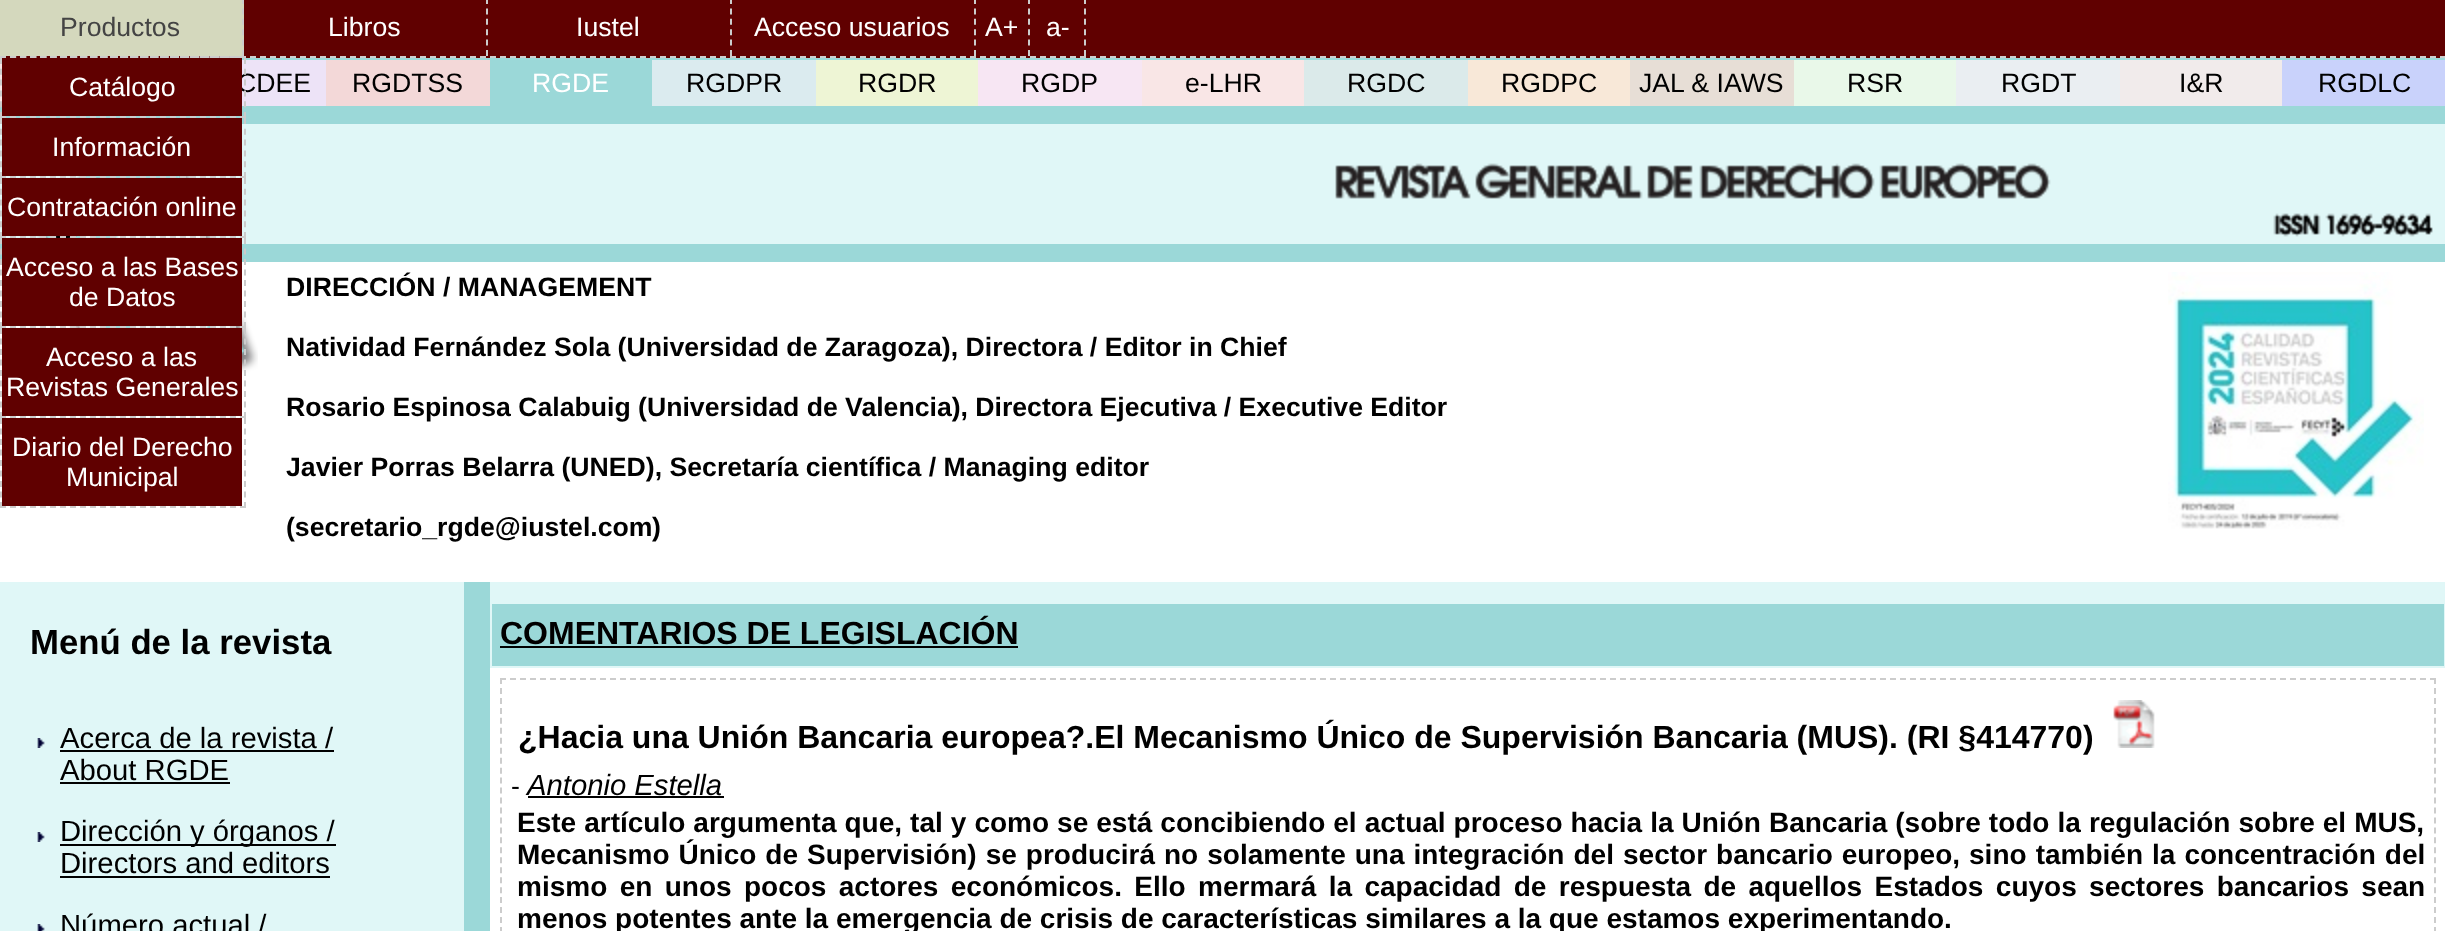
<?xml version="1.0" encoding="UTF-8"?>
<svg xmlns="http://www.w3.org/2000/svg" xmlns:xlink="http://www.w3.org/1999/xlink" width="2445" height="931">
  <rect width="100%" height="100%" fill="#ffffff" />
  <rect x="6" width="2439" height="58" fill="#600000" />
  <path d="M 0 57 h 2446" fill="none" stroke="#cccccc" stroke-width="2" stroke-dasharray="6 4" />
  <rect width="244" height="56" fill="#d4d8bd" />
  <path d="M 243 -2 v 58" fill="none" stroke="#cccccc" stroke-width="2" stroke-dasharray="6 4.4" />
  <path d="M 0 57 h 240" fill="none" stroke="#cccccc" stroke-width="2" stroke-dasharray="6 4.18" />
  <rect y="58" width="2445" height="66" fill="#9bd8d8" />
  <rect y="124" width="2445" height="120" fill="#e0f7f7" />
  <rect y="244" width="2445" height="18" fill="#9bd8d8" />
  <image x="36" y="176" width="222" height="242" xlink:href="image2.png" />
  <path d="M 245 118 v 60" fill="none" stroke="#cccccc" stroke-width="2" stroke-dasharray="6 4.8" />
  <path d="M 0 177 h 246" fill="none" stroke="#cccccc" stroke-width="2" stroke-dasharray="6 4" />
  <path d="M 1 118 v 60" fill="none" stroke="#cccccc" stroke-width="2" stroke-dasharray="6 4.8" />
  <rect x="2" y="118" width="240" height="58" fill="#600000" />
  <path d="M 245 178 v 60" fill="none" stroke="#cccccc" stroke-width="2" stroke-dasharray="6 4.8" />
  <path d="M 0 237 h 246" fill="none" stroke="#cccccc" stroke-width="2" stroke-dasharray="6 4" />
  <path d="M 1 178 v 60" fill="none" stroke="#cccccc" stroke-width="2" stroke-dasharray="6 4.8" />
  <rect x="2" y="178" width="240" height="58" fill="#600000" />
  <path d="M 245 238 v 90" fill="none" stroke="#cccccc" stroke-width="2" stroke-dasharray="6 4.5" />
  <path d="M 0 327 h 246" fill="none" stroke="#cccccc" stroke-width="2" stroke-dasharray="6 4" />
  <path d="M 1 238 v 90" fill="none" stroke="#cccccc" stroke-width="2" stroke-dasharray="6 4.5" />
  <rect x="2" y="238" width="240" height="88" fill="#600000" />
  <path d="M 245 328 v 90" fill="none" stroke="#cccccc" stroke-width="2" stroke-dasharray="6 4.5" />
  <path d="M 0 417 h 246" fill="none" stroke="#cccccc" stroke-width="2" stroke-dasharray="6 4" />
  <path d="M 1 328 v 90" fill="none" stroke="#cccccc" stroke-width="2" stroke-dasharray="6 4.5" />
  <rect x="2" y="328" width="240" height="88" fill="#600000" />
  <path d="M 245 418 v 90" fill="none" stroke="#cccccc" stroke-width="2" stroke-dasharray="6 4.5" />
  <path d="M 0 507 h 246" fill="none" stroke="#cccccc" stroke-width="2" stroke-dasharray="6 4" />
  <path d="M 1 418 v 90" fill="none" stroke="#cccccc" stroke-width="2" stroke-dasharray="6 4.5" />
  <rect x="2" y="418" width="240" height="88" fill="#600000" />
  <path d="M 487 -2 v 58" fill="none" stroke="#cccccc" stroke-width="2" stroke-dasharray="6 4.4" />
  <path d="M 731 -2 v 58" fill="none" stroke="#cccccc" stroke-width="2" stroke-dasharray="6 4.4" />
  <path d="M 975 -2 v 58" fill="none" stroke="#cccccc" stroke-width="2" stroke-dasharray="6 4.4" />
  <path d="M 1029 -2 v 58" fill="none" stroke="#cccccc" stroke-width="2" stroke-dasharray="6 4.4" />
  <path d="M 1085 -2 v 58" fill="none" stroke="#cccccc" stroke-width="2" stroke-dasharray="6 4.4" />
  <rect y="64" width="2" height="38" fill="#f9e6e6" />
  <rect x="242" y="60" width="84" height="46" fill="#ede3f7" />
  <rect x="326" y="60" width="164" height="46" fill="#f3d8d8" />
  <rect x="652" y="60" width="164" height="46" fill="#dbebef" />
  <rect x="816" y="60" width="162" height="46" fill="#eef5d5" />
  <rect x="978" y="60" width="164" height="46" fill="#f7e6f3" />
  <rect x="1142" y="60" width="162" height="46" fill="#f9e6e6" />
  <rect x="1304" y="60" width="164" height="46" fill="#dbeaea" />
  <rect x="1468" y="60" width="162" height="46" fill="#f8e8d8" />
  <rect x="1630" y="60" width="164" height="46" fill="#e7ded6" />
  <rect x="1794" y="60" width="162" height="46" fill="#e9f8e9" />
  <rect x="1956" y="60" width="164" height="46" fill="#eaeef2" />
  <rect x="2120" y="60" width="162" height="46" fill="#f1ebeb" />
  <rect x="2282" y="60" width="163" height="46" fill="#c9d2fb" />
  <image x="1335" y="163" width="1098" height="74" xlink:href="image1.png" />
  <image x="2168" y="272" width="256" height="257" xlink:href="image3.png" />
  <rect y="582" width="2445" height="349" fill="#e0f7f7" />
  <image x="37" y="738" width="8" height="10" xlink:href="image4.png" />
  <rect x="60" y="750" width="274" height="2" fill="#000000" />
  <rect x="60" y="782" width="170" height="2" fill="#000000" />
  <image x="37" y="832" width="8" height="10" xlink:href="image4.png" />
  <rect x="60" y="844" width="276" height="2" fill="#000000" />
  <rect x="60" y="876" width="270" height="2" fill="#000000" />
  <image x="37" y="924" width="8" height="7" xlink:href="image5.png" />
  <rect x="464" y="582" width="26" height="349" fill="#9bd8d8" />
  <rect x="490" y="668" width="1955" height="263" fill="#ffffff" />
  <rect x="492" y="604" width="1952" height="62" fill="#9bd8d8" />
  <rect x="500" y="646" width="518" height="2" fill="#000000" />
  <path d="M 500 679 h 1936" fill="none" stroke="#cccccc" stroke-width="2" stroke-dasharray="6 4" />
  <path d="M 2435 678 v 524" fill="none" stroke="#cccccc" stroke-width="2" stroke-dasharray="6 3.96" />
  <path d="M 501 678 v 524" fill="none" stroke="#cccccc" stroke-width="2" stroke-dasharray="6 3.96" />
  <image x="2113" y="700" width="42" height="48" xlink:href="image6.png" />
  <rect x="528" y="796" width="196" height="2" fill="#000000" />
  <text x="60" y="36" style="font-family: Liberation Sans; font-size: 26.65px; fill: #444444">Productos</text>
  <text x="52" y="156" style="font-family: Liberation Sans; font-size: 26.65px; fill: #ffffff">Información</text>
  <text x="7" y="216" style="font-family: Liberation Sans; font-size: 26.65px; fill: #ffffff">Contratación online</text>
  <text x="6" y="276" style="font-family: Liberation Sans; font-size: 26.65px; fill: #ffffff">Acceso a las Bases</text>
  <text x="69" y="306" style="font-family: Liberation Sans; font-size: 26.65px; fill: #ffffff">de Datos</text>
  <text x="46" y="366" style="font-family: Liberation Sans; font-size: 26.65px; fill: #ffffff">Acceso a las</text>
  <text x="6" y="396" style="font-family: Liberation Sans; font-size: 26.65px; fill: #ffffff">Revistas Generales</text>
  <text x="12" y="456" style="font-family: Liberation Sans; font-size: 26.65px; fill: #ffffff">Diario del Derecho</text>
  <text x="66" y="486" style="font-family: Liberation Sans; font-size: 26.65px; fill: #ffffff">Municipal</text>
  <text x="328" y="36" style="font-family: Liberation Sans; font-size: 26.65px; fill: #ffffff">Libros</text>
  <text x="576" y="36" style="font-family: Liberation Sans; font-size: 26.65px; fill: #ffffff">Iustel</text>
  <text x="754" y="36" style="font-family: Liberation Sans; font-size: 26.65px; fill: #ffffff">Acceso usuarios</text>
  <text x="985" y="36" style="font-family: Liberation Sans; font-size: 26.65px; fill: #ffffff">A+</text>
  <text x="1046" y="36" style="font-family: Liberation Sans; font-size: 26.65px; fill: #ffffff">a-</text>
  <text x="237" y="92" style="font-family: Liberation Sans; font-size: 26.65px; fill: #000000">CDEE</text>
  <rect x="2" y="58" width="240" height="58" fill="#600000" />
  <text x="69" y="96" style="font-family: Liberation Sans; font-size: 26.65px; fill: #ffffff">Catálogo</text>
  <path d="M 245 58 v 60" fill="none" stroke="#cccccc" stroke-width="2" stroke-dasharray="6 4.8" />
  <path d="M 0 117 h 246" fill="none" stroke="#cccccc" stroke-width="2" stroke-dasharray="6 4" />
  <path d="M 1 58 v 60" fill="none" stroke="#cccccc" stroke-width="2" stroke-dasharray="6 4.8" />
  <text x="352" y="92" style="font-family: Liberation Sans; font-size: 26.65px; fill: #000000">RGDTSS</text>
  <text x="532" y="92" style="font-family: Liberation Sans; font-size: 26.65px; fill: #ffffff">RGDE</text>
  <text x="686" y="92" style="font-family: Liberation Sans; font-size: 26.65px; fill: #000000">RGDPR</text>
  <text x="858" y="92" style="font-family: Liberation Sans; font-size: 26.65px; fill: #000000">RGDR</text>
  <text x="1021" y="92" style="font-family: Liberation Sans; font-size: 26.65px; fill: #000000">RGDP</text>
  <text x="1185" y="92" style="font-family: Liberation Sans; font-size: 26.65px; fill: #000000">e-LHR</text>
  <text x="1347" y="92" style="font-family: Liberation Sans; font-size: 26.65px; fill: #000000">RGDC</text>
  <text x="1501" y="92" style="font-family: Liberation Sans; font-size: 26.65px; fill: #000000">RGDPC</text>
  <text x="1639" y="92" style="font-family: Liberation Sans; font-size: 26.65px; fill: #000000">JAL &amp; IAWS</text>
  <text x="1847" y="92" style="font-family: Liberation Sans; font-size: 26.65px; fill: #000000">RSR</text>
  <text x="2001" y="92" style="font-family: Liberation Sans; font-size: 26.65px; fill: #000000">RGDT</text>
  <text x="2179" y="92" style="font-family: Liberation Sans; font-size: 26.65px; fill: #000000">I&amp;R</text>
  <text x="2318" y="92" style="font-family: Liberation Sans; font-size: 26.65px; fill: #000000">RGDLC</text>
  <text x="286" y="296" style="font-family: Liberation Sans; font-size: 26.65px; font-weight: bold; fill: #000000">DIRECCIÓN / MANAGEMENT</text>
  <text x="286" y="356" style="font-family: Liberation Sans; font-size: 26.65px; font-weight: bold; fill: #000000">Natividad Fernández Sola (Universidad de Zaragoza), Directora / Editor in Chief</text>
  <text x="286" y="416" word-spacing="-0.1" style="font-family: Liberation Sans; font-size: 26.65px; font-weight: bold; fill: #000000">Rosario Espinosa Calabuig (Universidad de Valencia), Directora Ejecutiva / Executive Editor</text>
  <text x="286" y="476" style="font-family: Liberation Sans; font-size: 26.65px; font-weight: bold; fill: #000000">Javier Porras Belarra (UNED), Secretaría científica / Managing editor</text>
  <text x="286" y="536" style="font-family: Liberation Sans; font-size: 26.65px; font-weight: bold; fill: #000000">(secretario_rgde@iustel.com</text>
  <text x="652" y="536" style="font-family: Liberation Sans; font-size: 26.65px; font-weight: bold; fill: #000000">)</text>
  <text x="30" y="654" style="font-family: Liberation Sans; font-size: 34.75px; font-weight: bold; fill: #000000">Menú de la revista</text>
  <text x="60" y="748" style="font-family: Liberation Sans; font-size: 29.25px; fill: #000000">Acerca de la revista /</text>
  <text x="60" y="780" style="font-family: Liberation Sans; font-size: 29.25px; fill: #000000">About RGDE</text>
  <text x="60" y="841" style="font-family: Liberation Sans; font-size: 29.25px; fill: #000000">Dirección y órganos /</text>
  <text x="60" y="873" style="font-family: Liberation Sans; font-size: 29.25px; fill: #000000">Directors and editors</text>
  <text x="60" y="935" style="font-family: Liberation Sans; font-size: 29.25px; fill: #000000">Número actual /</text>
  <text x="500" y="644" style="font-family: Liberation Sans; font-size: 32px; font-weight: bold; fill: #000000">COMENTARIOS DE LEGISLACIÓN</text>
  <text x="518" y="748" style="font-family: Liberation Sans; font-size: 32px; font-weight: bold; fill: #000000">¿Hacia una Unión Bancaria europea?.El Mecanismo Único de Supervisión Bancaria (MUS). (RI §414770)</text>
  <text x="511" y="795" style="font-family: Liberation Sans; font-size: 26.65px; fill: #000000">-</text>
  <text x="527" y="795" style="font-family: Liberation Sans; font-size: 29.25px; font-style: italic; fill: #000000">Antonio Estella</text>
  <text x="517" y="832" word-spacing="0.25" style="font-family: Liberation Sans; font-size: 28px; font-weight: bold; fill: #000000">Este artículo argumenta que, tal y como se está concibiendo el actual proceso hacia la Unión Bancaria (sobre todo la regulación sobre el MUS,</text>
  <text x="517" y="864" word-spacing="1.25" style="font-family: Liberation Sans; font-size: 28px; font-weight: bold; fill: #000000">Mecanismo Único de Supervisión) se producirá no solamente una integración del sector bancario europeo, sino también la concentración del</text>
  <text x="517" y="896" word-spacing="4.6" style="font-family: Liberation Sans; font-size: 28px; font-weight: bold; fill: #000000">mismo en unos pocos actores económicos. Ello mermará la capacidad de respuesta de aquellos Estados cuyos sectores bancarios sean</text>
  <text x="517" y="928" style="font-family: Liberation Sans; font-size: 28px; font-weight: bold; fill: #000000">menos potentes ante la emergencia de crisis de características similares a la que estamos experimentando.</text>
</svg>
